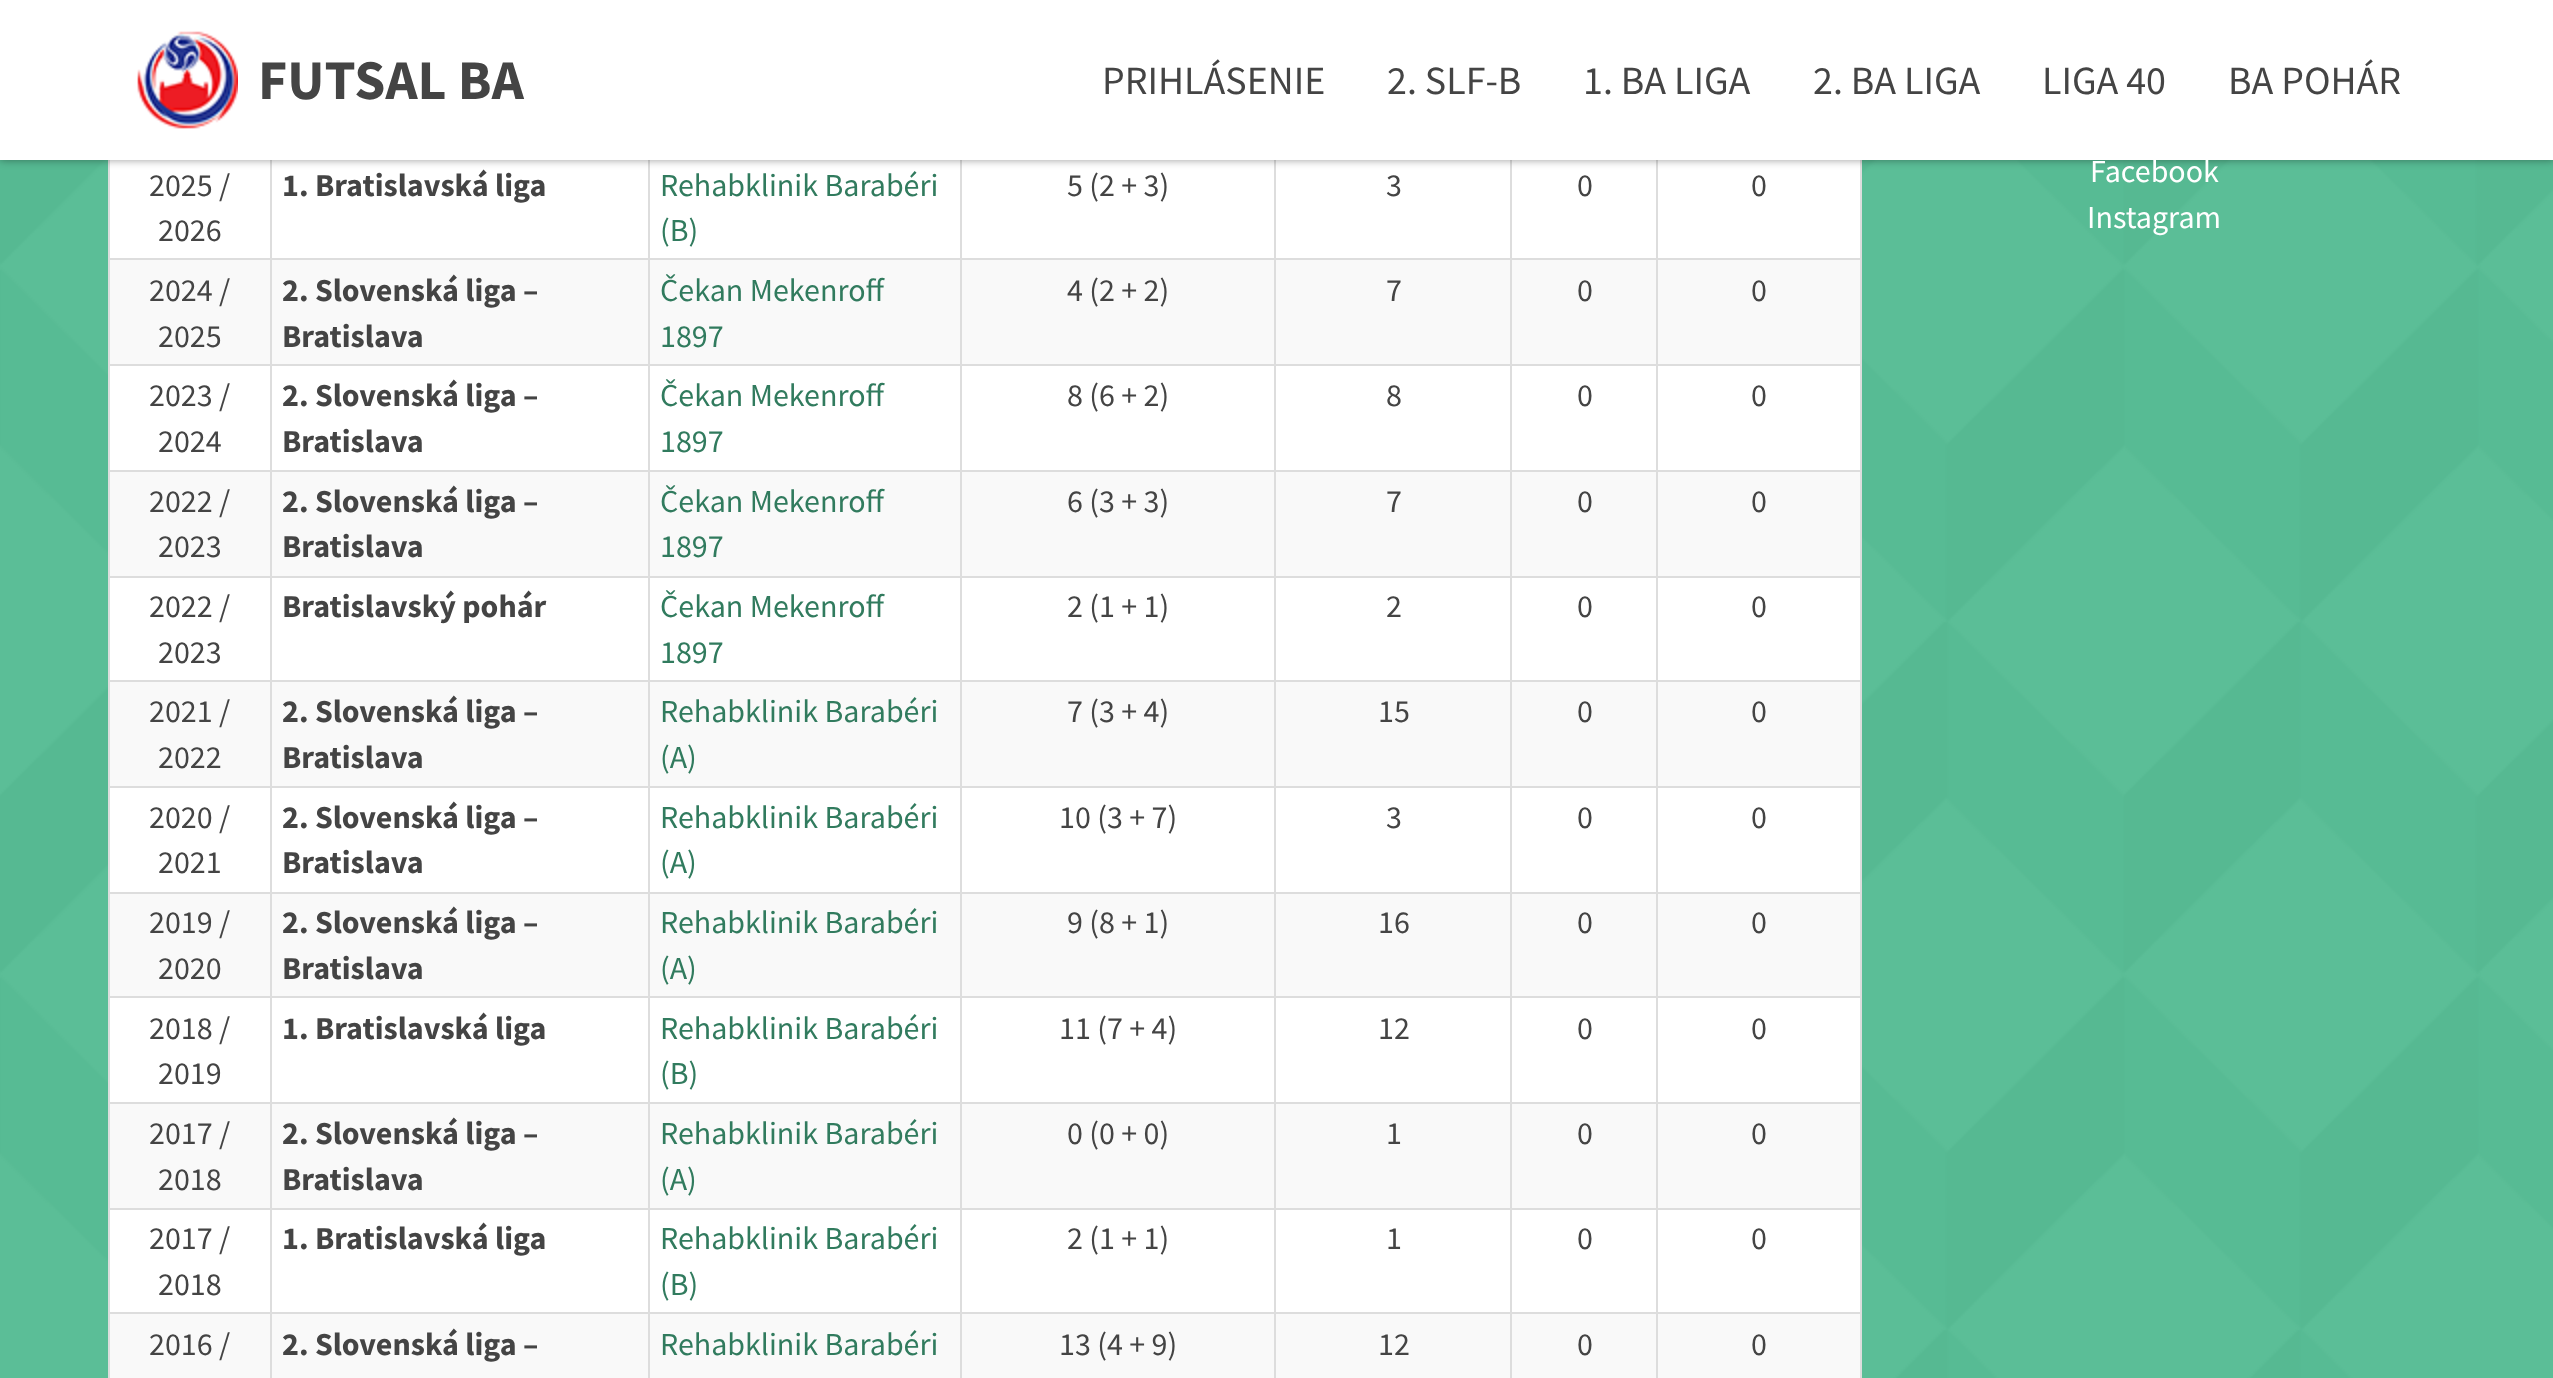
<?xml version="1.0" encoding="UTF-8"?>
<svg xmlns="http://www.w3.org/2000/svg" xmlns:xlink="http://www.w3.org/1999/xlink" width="2553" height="1378">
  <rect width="100%" height="100%" fill="#56bc94" />
  <image x="0" y="160" width="2553" height="1218" xlink:href="image2.png" />
  <rect x="110" y="160" width="1750" height="1152" fill="#ffffff" />
  <rect x="109" y="-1" width="1752" height="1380" fill="none" stroke="#dddddd" stroke-width="2" />
  <rect x="270" y="154" width="2" height="104" fill="#dddddd" />
  <rect x="648" y="154" width="2" height="104" fill="#dddddd" />
  <rect x="960" y="154" width="2" height="104" fill="#dddddd" />
  <rect x="1274" y="154" width="2" height="104" fill="#dddddd" />
  <rect x="1510" y="154" width="2" height="104" fill="#dddddd" />
  <rect x="1656" y="154" width="2" height="104" fill="#dddddd" />
  <rect width="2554" height="160" fill="#000000" fill-opacity="0.4" filter="blur(4px)" />
  <rect width="2553" height="160" fill="#ffffff" />
  <image x="137" y="31" width="101" height="98" xlink:href="image1.png" />
  <rect x="110" y="260" width="1750" height="104" fill="#f9f9f9" />
  <rect x="110" y="258" width="1750" height="2" fill="#dddddd" />
  <rect x="270" y="258" width="2" height="106" fill="#dddddd" />
  <rect x="648" y="258" width="2" height="106" fill="#dddddd" />
  <rect x="960" y="258" width="2" height="106" fill="#dddddd" />
  <rect x="1274" y="258" width="2" height="106" fill="#dddddd" />
  <rect x="1510" y="258" width="2" height="106" fill="#dddddd" />
  <rect x="1656" y="258" width="2" height="106" fill="#dddddd" />
  <rect x="110" y="364" width="1750" height="2" fill="#dddddd" />
  <rect x="270" y="364" width="2" height="106" fill="#dddddd" />
  <rect x="648" y="364" width="2" height="106" fill="#dddddd" />
  <rect x="960" y="364" width="2" height="106" fill="#dddddd" />
  <rect x="1274" y="364" width="2" height="106" fill="#dddddd" />
  <rect x="1510" y="364" width="2" height="106" fill="#dddddd" />
  <rect x="1656" y="364" width="2" height="106" fill="#dddddd" />
  <rect x="110" y="472" width="1750" height="104" fill="#f9f9f9" />
  <rect x="110" y="470" width="1750" height="2" fill="#dddddd" />
  <rect x="270" y="470" width="2" height="106" fill="#dddddd" />
  <rect x="648" y="470" width="2" height="106" fill="#dddddd" />
  <rect x="960" y="470" width="2" height="106" fill="#dddddd" />
  <rect x="1274" y="470" width="2" height="106" fill="#dddddd" />
  <rect x="1510" y="470" width="2" height="106" fill="#dddddd" />
  <rect x="1656" y="470" width="2" height="106" fill="#dddddd" />
  <rect x="110" y="576" width="1750" height="2" fill="#dddddd" />
  <rect x="270" y="576" width="2" height="104" fill="#dddddd" />
  <rect x="648" y="576" width="2" height="104" fill="#dddddd" />
  <rect x="960" y="576" width="2" height="104" fill="#dddddd" />
  <rect x="1274" y="576" width="2" height="104" fill="#dddddd" />
  <rect x="1510" y="576" width="2" height="104" fill="#dddddd" />
  <rect x="1656" y="576" width="2" height="104" fill="#dddddd" />
  <rect x="110" y="682" width="1750" height="104" fill="#f9f9f9" />
  <rect x="110" y="680" width="1750" height="2" fill="#dddddd" />
  <rect x="270" y="680" width="2" height="106" fill="#dddddd" />
  <rect x="648" y="680" width="2" height="106" fill="#dddddd" />
  <rect x="960" y="680" width="2" height="106" fill="#dddddd" />
  <rect x="1274" y="680" width="2" height="106" fill="#dddddd" />
  <rect x="1510" y="680" width="2" height="106" fill="#dddddd" />
  <rect x="1656" y="680" width="2" height="106" fill="#dddddd" />
  <rect x="110" y="786" width="1750" height="2" fill="#dddddd" />
  <rect x="270" y="786" width="2" height="106" fill="#dddddd" />
  <rect x="648" y="786" width="2" height="106" fill="#dddddd" />
  <rect x="960" y="786" width="2" height="106" fill="#dddddd" />
  <rect x="1274" y="786" width="2" height="106" fill="#dddddd" />
  <rect x="1510" y="786" width="2" height="106" fill="#dddddd" />
  <rect x="1656" y="786" width="2" height="106" fill="#dddddd" />
  <rect x="110" y="894" width="1750" height="102" fill="#f9f9f9" />
  <rect x="110" y="892" width="1750" height="2" fill="#dddddd" />
  <rect x="270" y="892" width="2" height="104" fill="#dddddd" />
  <rect x="648" y="892" width="2" height="104" fill="#dddddd" />
  <rect x="960" y="892" width="2" height="104" fill="#dddddd" />
  <rect x="1274" y="892" width="2" height="104" fill="#dddddd" />
  <rect x="1510" y="892" width="2" height="104" fill="#dddddd" />
  <rect x="1656" y="892" width="2" height="104" fill="#dddddd" />
  <rect x="110" y="996" width="1750" height="2" fill="#dddddd" />
  <rect x="270" y="996" width="2" height="106" fill="#dddddd" />
  <rect x="648" y="996" width="2" height="106" fill="#dddddd" />
  <rect x="960" y="996" width="2" height="106" fill="#dddddd" />
  <rect x="1274" y="996" width="2" height="106" fill="#dddddd" />
  <rect x="1510" y="996" width="2" height="106" fill="#dddddd" />
  <rect x="1656" y="996" width="2" height="106" fill="#dddddd" />
  <rect x="110" y="1104" width="1750" height="104" fill="#f9f9f9" />
  <rect x="110" y="1102" width="1750" height="2" fill="#dddddd" />
  <rect x="270" y="1102" width="2" height="106" fill="#dddddd" />
  <rect x="648" y="1102" width="2" height="106" fill="#dddddd" />
  <rect x="960" y="1102" width="2" height="106" fill="#dddddd" />
  <rect x="1274" y="1102" width="2" height="106" fill="#dddddd" />
  <rect x="1510" y="1102" width="2" height="106" fill="#dddddd" />
  <rect x="1656" y="1102" width="2" height="106" fill="#dddddd" />
  <rect x="110" y="1208" width="1750" height="2" fill="#dddddd" />
  <rect x="270" y="1208" width="2" height="104" fill="#dddddd" />
  <rect x="648" y="1208" width="2" height="104" fill="#dddddd" />
  <rect x="960" y="1208" width="2" height="104" fill="#dddddd" />
  <rect x="1274" y="1208" width="2" height="104" fill="#dddddd" />
  <rect x="1510" y="1208" width="2" height="104" fill="#dddddd" />
  <rect x="1656" y="1208" width="2" height="104" fill="#dddddd" />
  <rect x="110" y="1314" width="1750" height="64" fill="#f9f9f9" />
  <rect x="110" y="1312" width="1750" height="2" fill="#dddddd" />
  <rect x="270" y="1312" width="2" height="66" fill="#dddddd" />
  <rect x="648" y="1312" width="2" height="66" fill="#dddddd" />
  <rect x="960" y="1312" width="2" height="66" fill="#dddddd" />
  <rect x="1274" y="1312" width="2" height="66" fill="#dddddd" />
  <rect x="1510" y="1312" width="2" height="66" fill="#dddddd" />
  <rect x="1656" y="1312" width="2" height="66" fill="#dddddd" />
  <text x="258" y="99" style="font-family: Source Sans Pro; font-size: 56px; font-weight: bold; fill: #444444">FUTSAL BA</text>
  <text x="1102" y="94" style="font-family: Source Sans Pro; font-size: 40px; fill: #444444">PRIHLÁSENIE</text>
  <text x="1387" y="94" style="font-family: Source Sans Pro; font-size: 40px; fill: #444444">2. SLF-B</text>
  <text x="1583" y="94" style="font-family: Source Sans Pro; font-size: 40px; fill: #444444">1. BA LIGA</text>
  <text x="1813" y="94" style="font-family: Source Sans Pro; font-size: 40px; fill: #444444">2. BA LIGA</text>
  <text x="2042" y="94" style="font-family: Source Sans Pro; font-size: 40px; fill: #444444">LIGA 40</text>
  <text x="2228" y="94" style="font-family: Source Sans Pro; font-size: 40px; fill: #444444">BA POHÁR</text>
  <text x="149" y="196" style="font-family: Source Sans Pro; font-size: 32px; fill: #444444">2025 /</text>
  <text x="158" y="241" style="font-family: Source Sans Pro; font-size: 32px; fill: #444444">2026</text>
  <text x="282" y="196" style="font-family: Source Sans Pro; font-size: 32px; font-weight: bold; fill: #444444">1. Bratislavská liga</text>
  <text x="660" y="196" style="font-family: Source Sans Pro; font-size: 32px; fill: #317b5e">Rehabklinik Barabéri</text>
  <text x="660" y="241" style="font-family: Source Sans Pro; font-size: 32px; fill: #317b5e">(B)</text>
  <text x="1067" y="196" style="font-family: Source Sans Pro; font-size: 32px; fill: #444444">5 (2 + 3)</text>
  <text x="1386" y="196" style="font-family: Source Sans Pro; font-size: 32px; fill: #444444">3</text>
  <text x="1577" y="196" style="font-family: Source Sans Pro; font-size: 32px; fill: #444444">0</text>
  <text x="1751" y="196" style="font-family: Source Sans Pro; font-size: 32px; fill: #444444">0</text>
  <text x="149" y="301" style="font-family: Source Sans Pro; font-size: 32px; fill: #444444">2024 /</text>
  <text x="158" y="347" style="font-family: Source Sans Pro; font-size: 32px; fill: #444444">2025</text>
  <text x="282" y="301" style="font-family: Source Sans Pro; font-size: 32px; font-weight: bold; fill: #444444">2. Slovenská liga –</text>
  <text x="282" y="347" style="font-family: Source Sans Pro; font-size: 32px; font-weight: bold; fill: #444444">Bratislava</text>
  <text x="660" y="301" style="font-family: Source Sans Pro; font-size: 32px; fill: #317b5e">Čekan Mekenroff</text>
  <text x="660" y="347" style="font-family: Source Sans Pro; font-size: 32px; fill: #317b5e">1897</text>
  <text x="1067" y="301" style="font-family: Source Sans Pro; font-size: 32px; fill: #444444">4 (2 + 2)</text>
  <text x="1386" y="301" style="font-family: Source Sans Pro; font-size: 32px; fill: #444444">7</text>
  <text x="1577" y="301" style="font-family: Source Sans Pro; font-size: 32px; fill: #444444">0</text>
  <text x="1751" y="301" style="font-family: Source Sans Pro; font-size: 32px; fill: #444444">0</text>
  <text x="149" y="406" style="font-family: Source Sans Pro; font-size: 32px; fill: #444444">2023 /</text>
  <text x="158" y="452" style="font-family: Source Sans Pro; font-size: 32px; fill: #444444">2024</text>
  <text x="282" y="406" style="font-family: Source Sans Pro; font-size: 32px; font-weight: bold; fill: #444444">2. Slovenská liga –</text>
  <text x="282" y="452" style="font-family: Source Sans Pro; font-size: 32px; font-weight: bold; fill: #444444">Bratislava</text>
  <text x="660" y="406" style="font-family: Source Sans Pro; font-size: 32px; fill: #317b5e">Čekan Mekenroff</text>
  <text x="660" y="452" style="font-family: Source Sans Pro; font-size: 32px; fill: #317b5e">1897</text>
  <text x="1067" y="406" style="font-family: Source Sans Pro; font-size: 32px; fill: #444444">8 (6 + 2)</text>
  <text x="1386" y="406" style="font-family: Source Sans Pro; font-size: 32px; fill: #444444">8</text>
  <text x="1577" y="406" style="font-family: Source Sans Pro; font-size: 32px; fill: #444444">0</text>
  <text x="1751" y="406" style="font-family: Source Sans Pro; font-size: 32px; fill: #444444">0</text>
  <text x="149" y="512" style="font-family: Source Sans Pro; font-size: 32px; fill: #444444">2022 /</text>
  <text x="158" y="557" style="font-family: Source Sans Pro; font-size: 32px; fill: #444444">2023</text>
  <text x="282" y="512" style="font-family: Source Sans Pro; font-size: 32px; font-weight: bold; fill: #444444">2. Slovenská liga –</text>
  <text x="282" y="557" style="font-family: Source Sans Pro; font-size: 32px; font-weight: bold; fill: #444444">Bratislava</text>
  <text x="660" y="512" style="font-family: Source Sans Pro; font-size: 32px; fill: #317b5e">Čekan Mekenroff</text>
  <text x="660" y="557" style="font-family: Source Sans Pro; font-size: 32px; fill: #317b5e">1897</text>
  <text x="1067" y="512" style="font-family: Source Sans Pro; font-size: 32px; fill: #444444">6 (3 + 3)</text>
  <text x="1386" y="512" style="font-family: Source Sans Pro; font-size: 32px; fill: #444444">7</text>
  <text x="1577" y="512" style="font-family: Source Sans Pro; font-size: 32px; fill: #444444">0</text>
  <text x="1751" y="512" style="font-family: Source Sans Pro; font-size: 32px; fill: #444444">0</text>
  <text x="149" y="617" style="font-family: Source Sans Pro; font-size: 32px; fill: #444444">2022 /</text>
  <text x="158" y="663" style="font-family: Source Sans Pro; font-size: 32px; fill: #444444">2023</text>
  <text x="282" y="617" style="font-family: Source Sans Pro; font-size: 32px; font-weight: bold; fill: #444444">Bratislavský pohár</text>
  <text x="660" y="617" style="font-family: Source Sans Pro; font-size: 32px; fill: #317b5e">Čekan Mekenroff</text>
  <text x="660" y="663" style="font-family: Source Sans Pro; font-size: 32px; fill: #317b5e">1897</text>
  <text x="1067" y="617" style="font-family: Source Sans Pro; font-size: 32px; fill: #444444">2 (1 + 1)</text>
  <text x="1386" y="617" style="font-family: Source Sans Pro; font-size: 32px; fill: #444444">2</text>
  <text x="1577" y="617" style="font-family: Source Sans Pro; font-size: 32px; fill: #444444">0</text>
  <text x="1751" y="617" style="font-family: Source Sans Pro; font-size: 32px; fill: #444444">0</text>
  <text x="149" y="722" style="font-family: Source Sans Pro; font-size: 32px; fill: #444444">2021 /</text>
  <text x="158" y="768" style="font-family: Source Sans Pro; font-size: 32px; fill: #444444">2022</text>
  <text x="282" y="722" style="font-family: Source Sans Pro; font-size: 32px; font-weight: bold; fill: #444444">2. Slovenská liga –</text>
  <text x="282" y="768" style="font-family: Source Sans Pro; font-size: 32px; font-weight: bold; fill: #444444">Bratislava</text>
  <text x="660" y="722" style="font-family: Source Sans Pro; font-size: 32px; fill: #317b5e">Rehabklinik Barabéri</text>
  <text x="660" y="768" style="font-family: Source Sans Pro; font-size: 32px; fill: #317b5e">(A)</text>
  <text x="1067" y="722" style="font-family: Source Sans Pro; font-size: 32px; fill: #444444">7 (3 + 4)</text>
  <text x="1378" y="722" style="font-family: Source Sans Pro; font-size: 32px; fill: #444444">15</text>
  <text x="1577" y="722" style="font-family: Source Sans Pro; font-size: 32px; fill: #444444">0</text>
  <text x="1751" y="722" style="font-family: Source Sans Pro; font-size: 32px; fill: #444444">0</text>
  <text x="149" y="828" style="font-family: Source Sans Pro; font-size: 32px; fill: #444444">2020 /</text>
  <text x="158" y="873" style="font-family: Source Sans Pro; font-size: 32px; fill: #444444">2021</text>
  <text x="282" y="828" style="font-family: Source Sans Pro; font-size: 32px; font-weight: bold; fill: #444444">2. Slovenská liga –</text>
  <text x="282" y="873" style="font-family: Source Sans Pro; font-size: 32px; font-weight: bold; fill: #444444">Bratislava</text>
  <text x="660" y="828" style="font-family: Source Sans Pro; font-size: 32px; fill: #317b5e">Rehabklinik Barabéri</text>
  <text x="660" y="873" style="font-family: Source Sans Pro; font-size: 32px; fill: #317b5e">(A)</text>
  <text x="1059" y="828" style="font-family: Source Sans Pro; font-size: 32px; fill: #444444">10 (3 + 7)</text>
  <text x="1386" y="828" style="font-family: Source Sans Pro; font-size: 32px; fill: #444444">3</text>
  <text x="1577" y="828" style="font-family: Source Sans Pro; font-size: 32px; fill: #444444">0</text>
  <text x="1751" y="828" style="font-family: Source Sans Pro; font-size: 32px; fill: #444444">0</text>
  <text x="149" y="933" style="font-family: Source Sans Pro; font-size: 32px; fill: #444444">2019 /</text>
  <text x="158" y="979" style="font-family: Source Sans Pro; font-size: 32px; fill: #444444">2020</text>
  <text x="282" y="933" style="font-family: Source Sans Pro; font-size: 32px; font-weight: bold; fill: #444444">2. Slovenská liga –</text>
  <text x="282" y="979" style="font-family: Source Sans Pro; font-size: 32px; font-weight: bold; fill: #444444">Bratislava</text>
  <text x="660" y="933" style="font-family: Source Sans Pro; font-size: 32px; fill: #317b5e">Rehabklinik Barabéri</text>
  <text x="660" y="979" style="font-family: Source Sans Pro; font-size: 32px; fill: #317b5e">(A)</text>
  <text x="1067" y="933" style="font-family: Source Sans Pro; font-size: 32px; fill: #444444">9 (8 + 1)</text>
  <text x="1378" y="933" style="font-family: Source Sans Pro; font-size: 32px; fill: #444444">16</text>
  <text x="1577" y="933" style="font-family: Source Sans Pro; font-size: 32px; fill: #444444">0</text>
  <text x="1751" y="933" style="font-family: Source Sans Pro; font-size: 32px; fill: #444444">0</text>
  <text x="149" y="1039" style="font-family: Source Sans Pro; font-size: 32px; fill: #444444">2018 /</text>
  <text x="158" y="1084" style="font-family: Source Sans Pro; font-size: 32px; fill: #444444">2019</text>
  <text x="282" y="1039" style="font-family: Source Sans Pro; font-size: 32px; font-weight: bold; fill: #444444">1. Bratislavská liga</text>
  <text x="660" y="1039" style="font-family: Source Sans Pro; font-size: 32px; fill: #317b5e">Rehabklinik Barabéri</text>
  <text x="660" y="1084" style="font-family: Source Sans Pro; font-size: 32px; fill: #317b5e">(B)</text>
  <text x="1059" y="1039" style="font-family: Source Sans Pro; font-size: 32px; fill: #444444">11 (7 + 4)</text>
  <text x="1378" y="1039" style="font-family: Source Sans Pro; font-size: 32px; fill: #444444">12</text>
  <text x="1577" y="1039" style="font-family: Source Sans Pro; font-size: 32px; fill: #444444">0</text>
  <text x="1751" y="1039" style="font-family: Source Sans Pro; font-size: 32px; fill: #444444">0</text>
  <text x="149" y="1144" style="font-family: Source Sans Pro; font-size: 32px; fill: #444444">2017 /</text>
  <text x="158" y="1190" style="font-family: Source Sans Pro; font-size: 32px; fill: #444444">2018</text>
  <text x="282" y="1144" style="font-family: Source Sans Pro; font-size: 32px; font-weight: bold; fill: #444444">2. Slovenská liga –</text>
  <text x="282" y="1190" style="font-family: Source Sans Pro; font-size: 32px; font-weight: bold; fill: #444444">Bratislava</text>
  <text x="660" y="1144" style="font-family: Source Sans Pro; font-size: 32px; fill: #317b5e">Rehabklinik Barabéri</text>
  <text x="660" y="1190" style="font-family: Source Sans Pro; font-size: 32px; fill: #317b5e">(A)</text>
  <text x="1067" y="1144" style="font-family: Source Sans Pro; font-size: 32px; fill: #444444">0 (0 + 0)</text>
  <text x="1386" y="1144" style="font-family: Source Sans Pro; font-size: 32px; fill: #444444">1</text>
  <text x="1577" y="1144" style="font-family: Source Sans Pro; font-size: 32px; fill: #444444">0</text>
  <text x="1751" y="1144" style="font-family: Source Sans Pro; font-size: 32px; fill: #444444">0</text>
  <text x="149" y="1249" style="font-family: Source Sans Pro; font-size: 32px; fill: #444444">2017 /</text>
  <text x="158" y="1295" style="font-family: Source Sans Pro; font-size: 32px; fill: #444444">2018</text>
  <text x="282" y="1249" style="font-family: Source Sans Pro; font-size: 32px; font-weight: bold; fill: #444444">1. Bratislavská liga</text>
  <text x="660" y="1249" style="font-family: Source Sans Pro; font-size: 32px; fill: #317b5e">Rehabklinik Barabéri</text>
  <text x="660" y="1295" style="font-family: Source Sans Pro; font-size: 32px; fill: #317b5e">(B)</text>
  <text x="1067" y="1249" style="font-family: Source Sans Pro; font-size: 32px; fill: #444444">2 (1 + 1)</text>
  <text x="1386" y="1249" style="font-family: Source Sans Pro; font-size: 32px; fill: #444444">1</text>
  <text x="1577" y="1249" style="font-family: Source Sans Pro; font-size: 32px; fill: #444444">0</text>
  <text x="1751" y="1249" style="font-family: Source Sans Pro; font-size: 32px; fill: #444444">0</text>
  <text x="149" y="1355" style="font-family: Source Sans Pro; font-size: 32px; fill: #444444">2016 /</text>
  <text x="282" y="1355" style="font-family: Source Sans Pro; font-size: 32px; font-weight: bold; fill: #444444">2. Slovenská liga –</text>
  <text x="660" y="1355" style="font-family: Source Sans Pro; font-size: 32px; fill: #317b5e">Rehabklinik Barabéri</text>
  <text x="1059" y="1355" style="font-family: Source Sans Pro; font-size: 32px; fill: #444444">13 (4 + 9)</text>
  <text x="1378" y="1355" style="font-family: Source Sans Pro; font-size: 32px; fill: #444444">12</text>
  <text x="1577" y="1355" style="font-family: Source Sans Pro; font-size: 32px; fill: #444444">0</text>
  <text x="1751" y="1355" style="font-family: Source Sans Pro; font-size: 32px; fill: #444444">0</text>
  <text x="2090" y="182" style="font-family: Source Sans Pro; font-size: 32px; fill: #ffffff">Facebook</text>
  <text x="2087" y="228" style="font-family: Source Sans Pro; font-size: 32px; fill: #ffffff">Instagram</text>
</svg>
